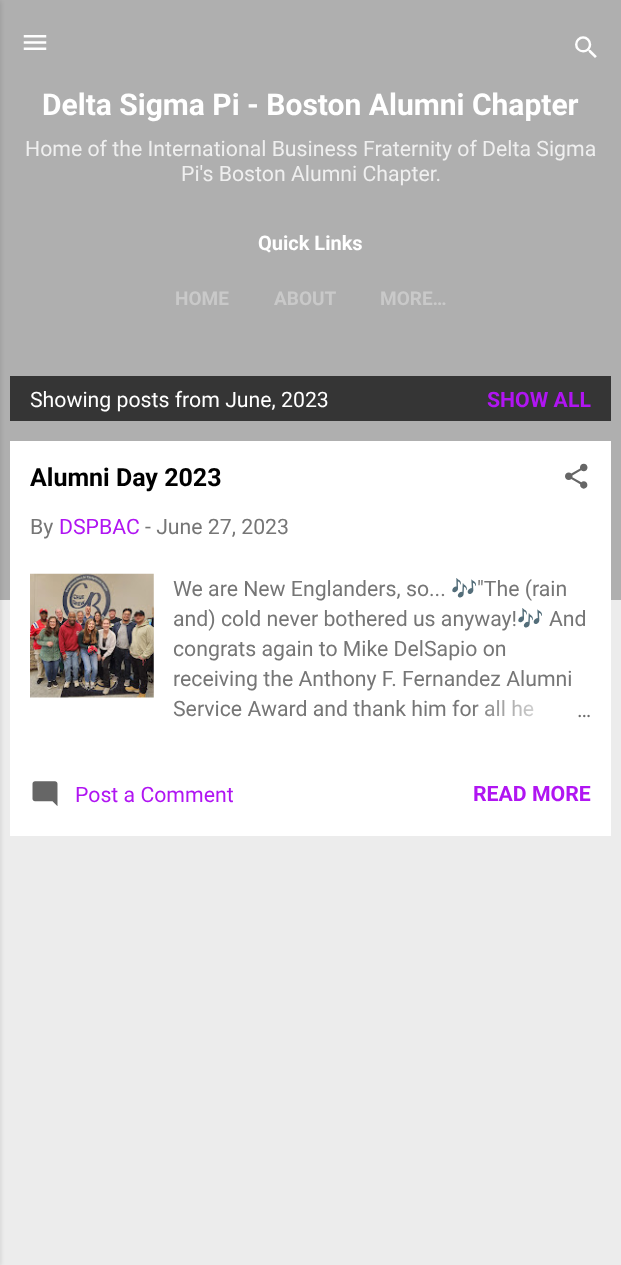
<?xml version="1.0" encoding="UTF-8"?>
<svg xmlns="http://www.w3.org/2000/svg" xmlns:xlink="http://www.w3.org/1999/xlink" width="621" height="1265">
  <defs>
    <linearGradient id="g1" gradientUnits="userSpaceOnUse" x1="591" y1="709" x2="471" y2="709"><stop offset="0" stop-color="#ffffff" /><stop offset="0.2" stop-color="#ffffff" /><stop offset="1" stop-color="#ffffff" stop-opacity="0" /></linearGradient>
  </defs>
  <rect width="100%" height="100%" fill="#ececec" />
  <rect width="621" height="600" fill="#afafaf" />
  <rect x="-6" y="1" width="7" height="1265" fill="#000000" fill-opacity="0.1" filter="blur(2px)" />
  <image x="23" y="35" width="24" height="15" xlink:href="image1.png" />
  <image x="575" y="36" width="22" height="22" xlink:href="image2.png" />
  <rect x="10" y="376" width="601" height="45" fill="#353535" />
  <rect x="10" y="441" width="601" height="395" fill="#ffffff" />
  <image x="565" y="463" width="23" height="26" xlink:href="image3.png" />
  <image x="30" y="573" width="124" height="125" xlink:href="image4.png" />
  <image x="32" y="781" width="26" height="25" xlink:href="image5.png" />
  <text x="42" y="115" style="font-family: Roboto; font-size: 30px; font-weight: bold; fill: #ffffff">Delta Sigma Pi - Boston Alumni Chapter</text>
  <text x="25" y="156" style="font-family: Roboto; font-size: 21.25px; fill: #efefef">Home of the International Business Fraternity of Delta Sigma</text>
  <text x="181" y="181" style="font-family: Roboto; font-size: 21.25px; fill: #efefef">Pi's Boston Alumni Chapter.</text>
  <text x="258" y="250" style="font-family: Roboto; font-size: 20px; font-weight: bold; fill: #ffffff">Quick Links</text>
  <text x="175" y="305" style="font-family: Roboto; font-size: 19px; font-weight: bold; fill: #c9c9c9">HOME</text>
  <text x="274" y="305" style="font-family: Roboto; font-size: 19px; font-weight: bold; fill: #c9c9c9">ABOUT</text>
  <text x="380" y="305" style="font-family: Roboto; font-size: 19px; font-weight: bold; fill: #c9c9c9">MORE…</text>
  <text x="30" y="407" style="font-family: Roboto; font-size: 21.25px; fill: #ffffff">Showing posts from June, 2023</text>
  <text x="487" y="407" style="font-family: Roboto; font-size: 21.25px; font-weight: bold; fill: #b015f2">SHOW ALL</text>
  <text x="30" y="486" style="font-family: Roboto; font-size: 25px; font-weight: bold; fill: #000000">Alumni Day 2023</text>
  <text x="30" y="534" style="font-family: Roboto; font-size: 21.25px; fill: #767676">By</text>
  <text x="59" y="534" style="font-family: Roboto; font-size: 21.25px; fill: #b015f2">DSPBAC</text>
  <text x="145" y="534" style="font-family: Roboto; font-size: 21.25px; fill: #767676">- June 27, 2023</text>
  <text x="173" y="596" style="font-family: Roboto; font-size: 21.25px; fill: #767676">We are New Englanders, so...</text>
  <text x="451" y="596" style="font-family: Noto Color Emoji; font-size: 21.25px; fill: #767676">🎶</text>
  <text x="477" y="596" style="font-family: Roboto; font-size: 21.25px; fill: #767676">"The (rain</text>
  <text x="173" y="626" style="font-family: Roboto; font-size: 21.25px; fill: #767676">and) cold never bothered us anyway!</text>
  <text x="517" y="626" style="font-family: Noto Color Emoji; font-size: 21.25px; fill: #767676">🎶</text>
  <text x="549" y="626" style="font-family: Roboto; font-size: 21.25px; fill: #767676">And</text>
  <text x="173" y="656" style="font-family: Roboto; font-size: 21.25px; fill: #767676">congrats again to Mike DelSapio on</text>
  <text x="173" y="686" style="font-family: Roboto; font-size: 21.25px; fill: #767676">receiving the Anthony F. Fernandez Alumni</text>
  <text x="173" y="716" style="font-family: Roboto; font-size: 21.25px; fill: #767676">Service Award and thank him for all he</text>
  <rect x="473" y="700" width="61" height="17" fill="url(#g1)" />
  <text x="577" y="717" style="font-family: Roboto; font-size: 21.25px; fill: #6c6c6c">…</text>
  <text x="75" y="802" style="font-family: Roboto; font-size: 21.25px; fill: #b015f2">Post a Comment</text>
  <text x="473" y="801" style="font-family: Roboto; font-size: 21.25px; font-weight: bold; fill: #b015f2">READ MORE</text>
</svg>
